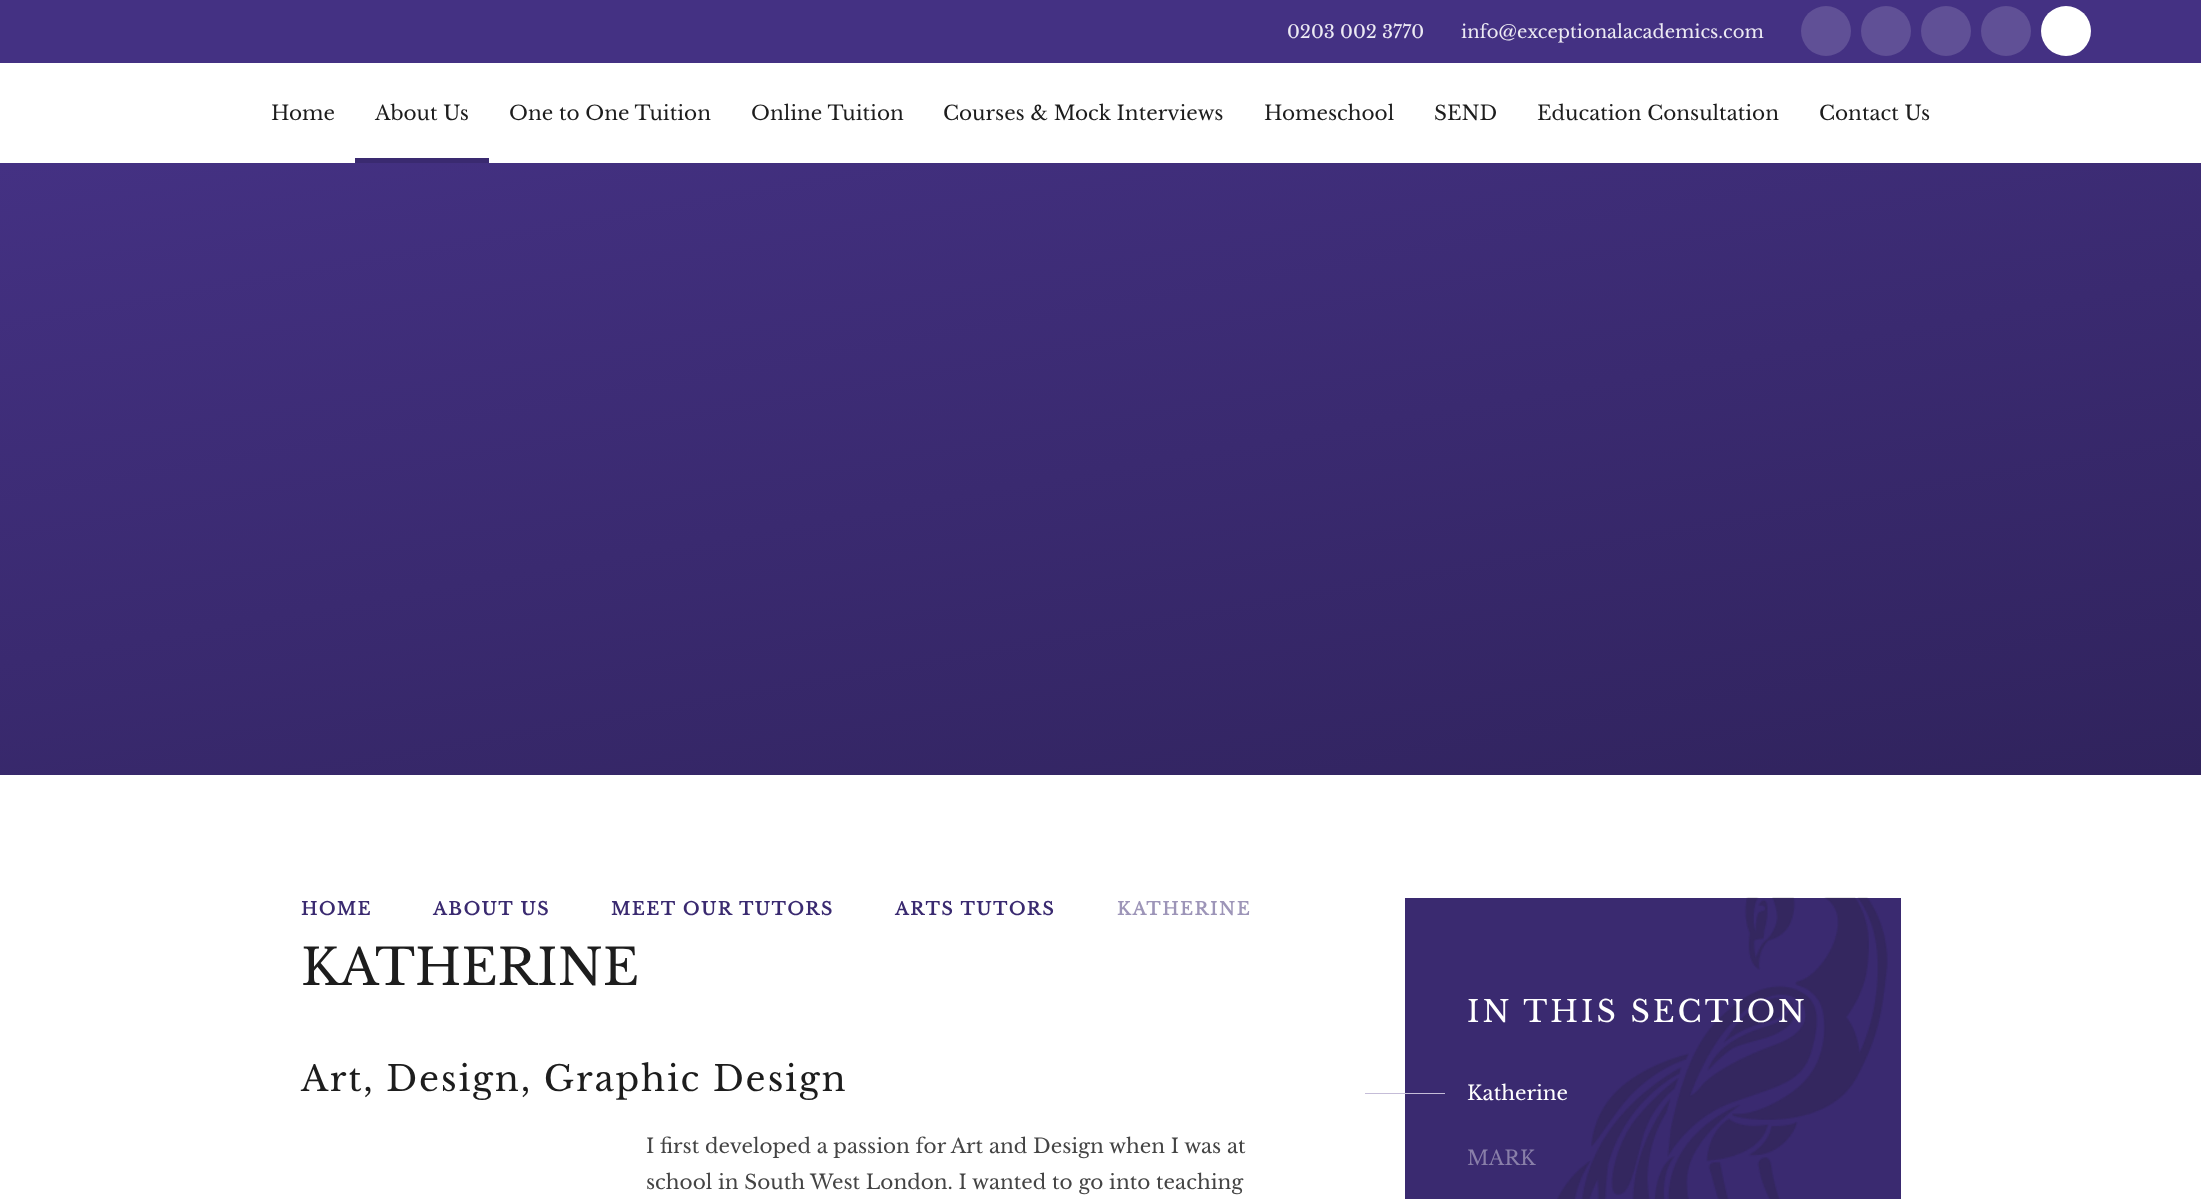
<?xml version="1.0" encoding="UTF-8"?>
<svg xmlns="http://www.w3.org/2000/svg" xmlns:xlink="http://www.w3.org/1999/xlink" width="2201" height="1199">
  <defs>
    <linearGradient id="g1" gradientUnits="userSpaceOnUse" x1="1015" y1="-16" x2="1186" y2="954"><stop offset="0" stop-color="#443183" /><stop offset="1" stop-color="#30235d" /></linearGradient>
  </defs>
  <rect width="100%" height="100%" fill="#ffffff" />
  <rect width="2201" height="63" fill="#443183" />
  <circle cx="1826" cy="31" r="25" fill="#605096" />
  <circle cx="1886" cy="31" r="25" fill="#605096" />
  <circle cx="1946" cy="31" r="25" fill="#605096" />
  <circle cx="2006" cy="31" r="25" fill="#605096" />
  <circle cx="2066" cy="31" r="25" fill="#ffffff" />
  <rect x="355" y="158" width="134" height="5" fill="#3a2a70" />
  <rect y="163" width="2201" height="612" fill="url(#g1)" />
  <rect x="1405" y="898" width="496" height="301" fill="#3a2a70" />
  <image x="1557" y="897" width="331" height="302" xlink:href="image1.png" />
  <rect x="1365" y="1093" width="80" height="1" fill="#c5bdd8" />
  <text x="1287" y="38" style="font-family: Libre Baskerville; font-size: 18px; fill: #eceaf3">0203 002 3770</text>
  <text x="1461" y="38" style="font-family: Libre Baskerville; font-size: 18px; fill: #eceaf3">info@exceptionalacademics.com</text>
  <text x="271" y="120" style="font-family: Libre Baskerville; font-size: 20px; fill: #1d1d1d">Home</text>
  <text x="375" y="120" style="font-family: Libre Baskerville; font-size: 20px; fill: #1d1d1d">About Us</text>
  <text x="509" y="120" style="font-family: Libre Baskerville; font-size: 20px; fill: #1d1d1d">One to One Tuition</text>
  <text x="751" y="120" style="font-family: Libre Baskerville; font-size: 20px; fill: #1d1d1d">Online Tuition</text>
  <text x="943" y="120" style="font-family: Libre Baskerville; font-size: 20px; fill: #1d1d1d">Courses &amp; Mock Interviews</text>
  <text x="1264" y="120" style="font-family: Libre Baskerville; font-size: 20px; fill: #1d1d1d">Homeschool</text>
  <text x="1434" y="120" style="font-family: Libre Baskerville; font-size: 20px; fill: #1d1d1d">SEND</text>
  <text x="1537" y="120" style="font-family: Libre Baskerville; font-size: 20px; fill: #1d1d1d">Education Consultation</text>
  <text x="1819" y="120" style="font-family: Libre Baskerville; font-size: 20px; fill: #1d1d1d">Contact Us</text>
  <text x="301" y="915" style="font-family: Libre Baskerville; font-size: 17.5px; font-weight: bold; letter-spacing: 1.75px; fill: #3a2a70">HOME</text>
  <text x="433" y="915" style="font-family: Libre Baskerville; font-size: 17.5px; font-weight: bold; letter-spacing: 1.75px; fill: #3a2a70">ABOUT US</text>
  <text x="611" y="915" style="font-family: Libre Baskerville; font-size: 17.5px; font-weight: bold; letter-spacing: 1.75px; fill: #3a2a70">MEET OUR TUTORS</text>
  <text x="895" y="915" style="font-family: Libre Baskerville; font-size: 17.5px; font-weight: bold; letter-spacing: 1.75px; fill: #3a2a70">ARTS TUTORS</text>
  <text x="1117" y="915" style="font-family: Libre Baskerville; font-size: 17.5px; font-weight: bold; letter-spacing: 1.75px; fill: #9d95b8">KATHERINE</text>
  <text x="301" y="985" style="font-family: Libre Baskerville; font-size: 50px; fill: #1d1d1d">KATHERINE</text>
  <text x="301" y="1091" style="font-family: Libre Baskerville; font-size: 35px; letter-spacing: 1.75px; fill: #1d1d1d">Art, Design, Graphic Design</text>
  <text x="646" y="1153" style="font-family: Libre Baskerville; font-size: 20px; fill: #444444">I first developed a passion for Art and Design when I was at</text>
  <text x="646" y="1189" style="font-family: Libre Baskerville; font-size: 20px; fill: #444444">school in South West London. I wanted to go into teaching</text>
  <text x="1467" y="1022" style="font-family: Libre Baskerville; font-size: 30px; letter-spacing: 3px; fill: #ffffff">IN THIS SECTION</text>
  <text x="1467" y="1100" style="font-family: Libre Baskerville; font-size: 20px; fill: #ffffff">Katherine</text>
  <text x="1467" y="1165" style="font-family: Libre Baskerville; font-size: 20px; fill: #897fa9">MARK</text>
</svg>
